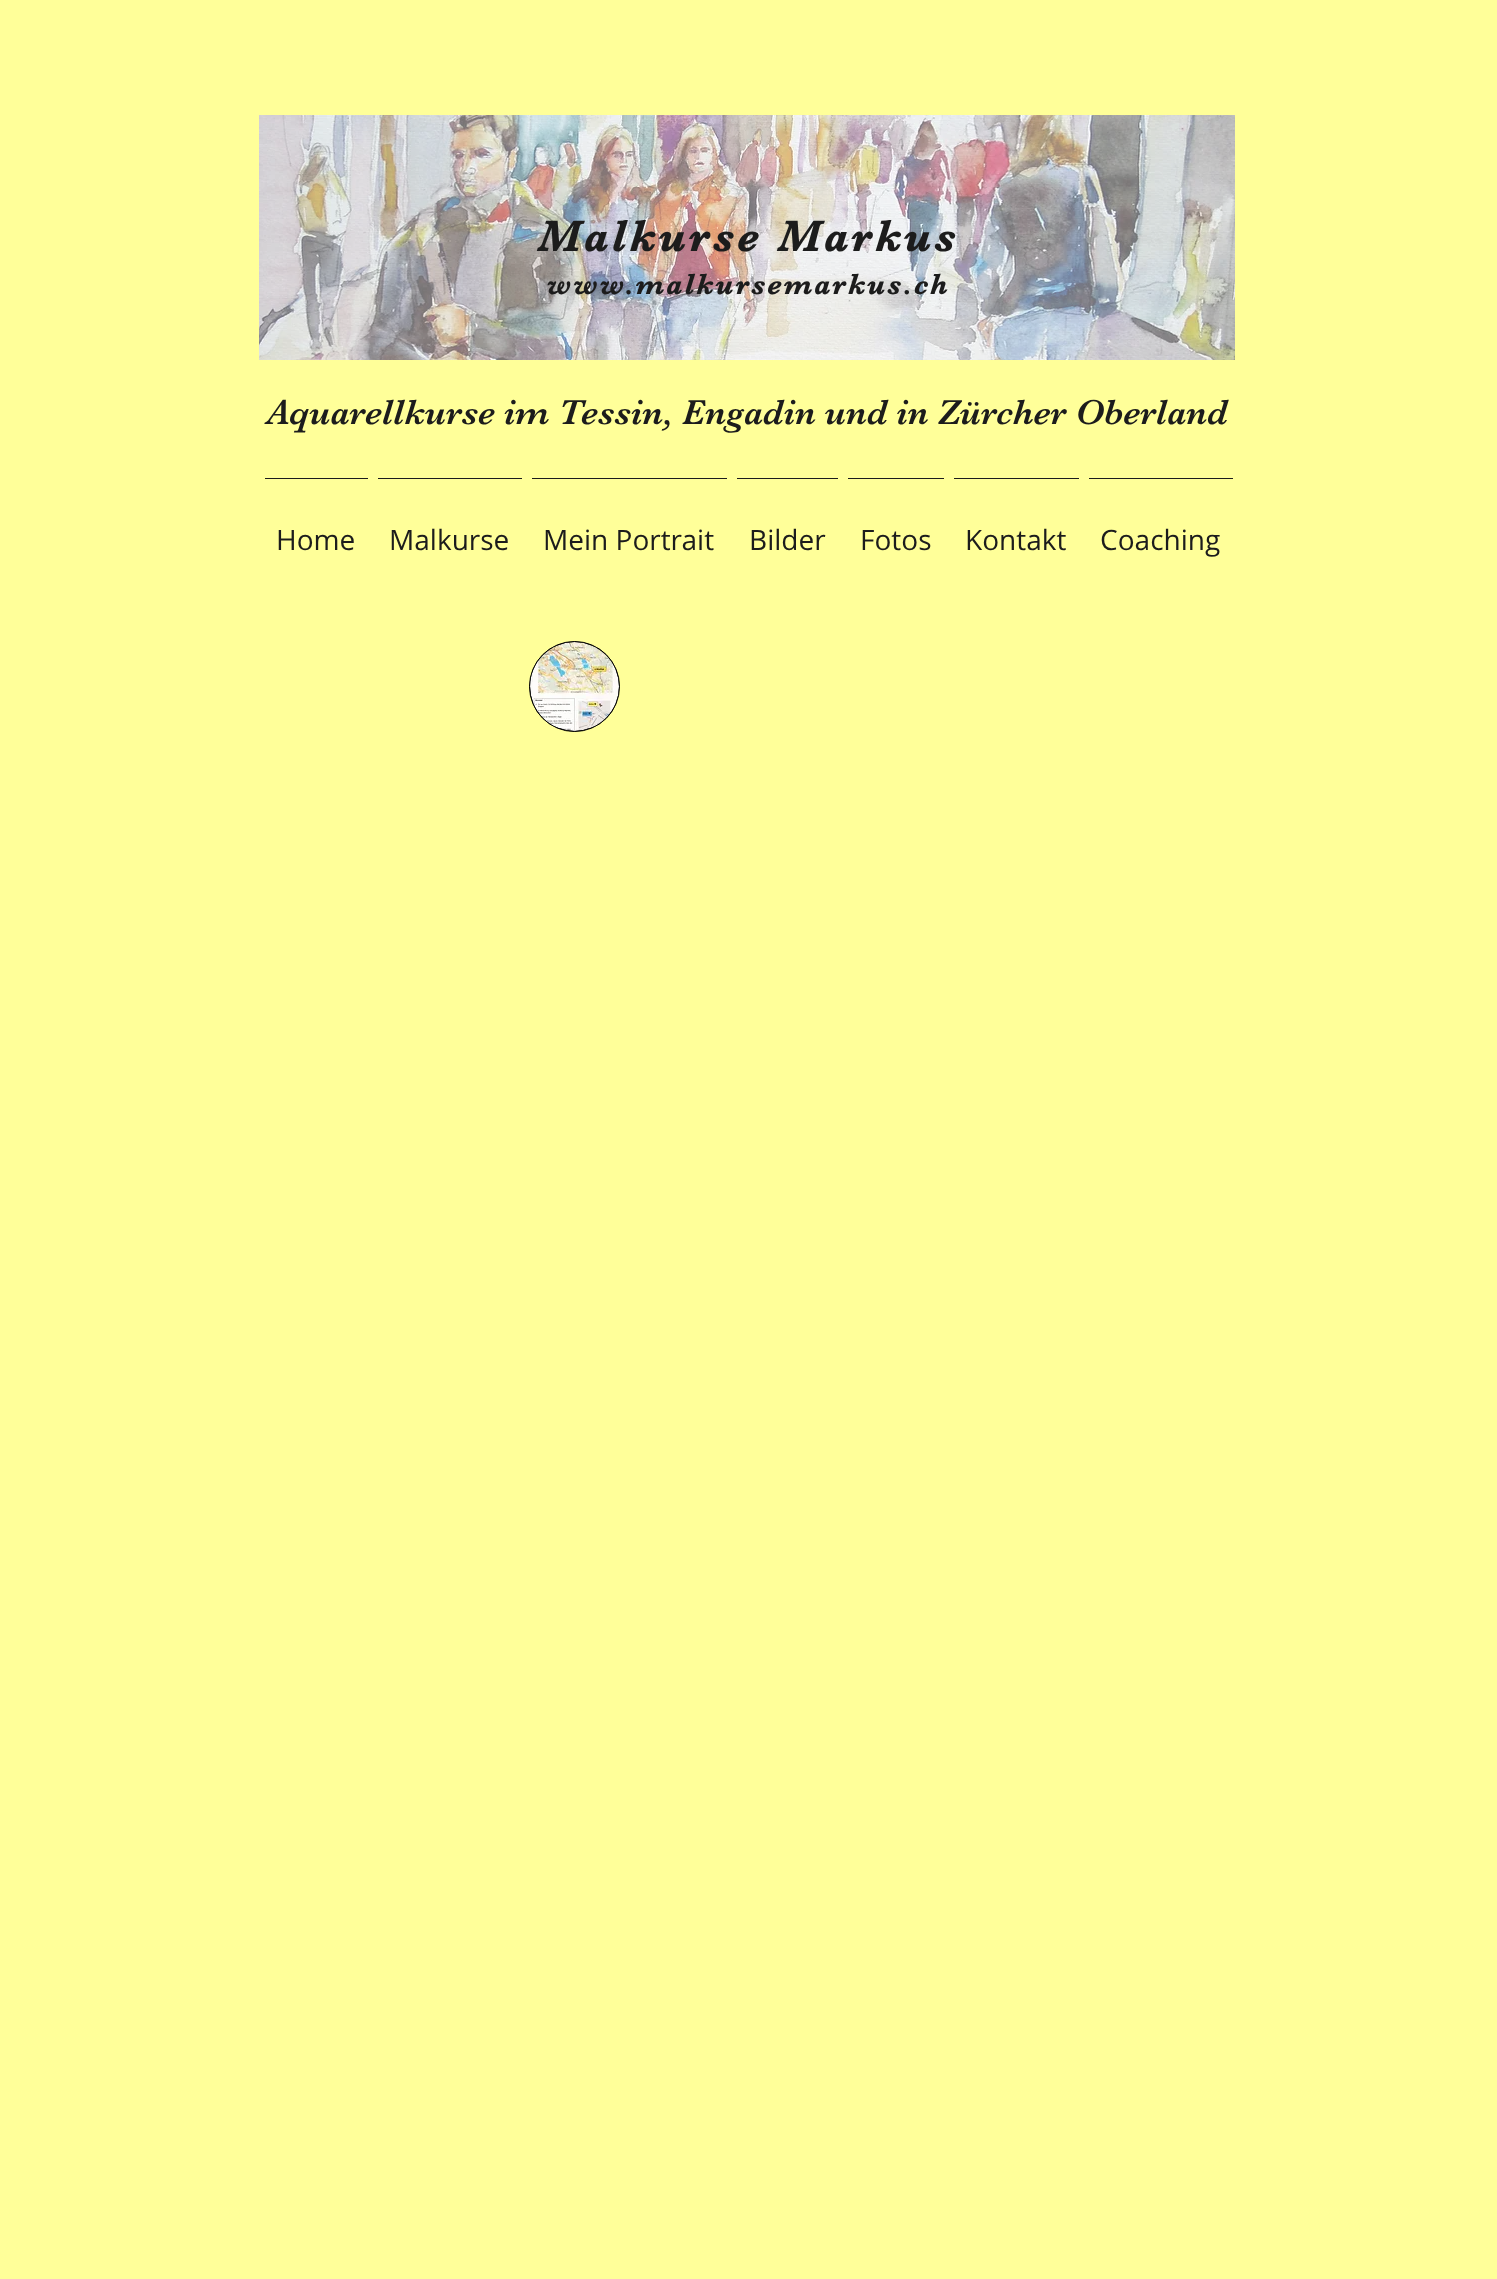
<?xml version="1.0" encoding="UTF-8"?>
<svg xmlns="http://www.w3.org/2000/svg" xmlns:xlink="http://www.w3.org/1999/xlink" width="1497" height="2279">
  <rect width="100%" height="100%" fill="#ffff99" />
  <image x="259" y="115" width="976" height="245" xlink:href="image1.png" />
  <rect x="265" y="478" width="103" height="1" fill="#1c1c1c" />
  <rect x="378" y="478" width="144" height="1" fill="#1c1c1c" />
  <rect x="532" y="478" width="195" height="1" fill="#1c1c1c" />
  <rect x="737" y="478" width="101" height="1" fill="#1c1c1c" />
  <rect x="848" y="478" width="96" height="1" fill="#1c1c1c" />
  <rect x="954" y="478" width="125" height="1" fill="#1c1c1c" />
  <rect x="1089" y="478" width="144" height="1" fill="#1c1c1c" />
  <circle cx="574.5" cy="686.5" r="45" fill="#000000" stroke="#000000" />
  <image x="530" y="642" width="89" height="89" xlink:href="image2.png" />
  <text x="538" y="251" style="font-family: 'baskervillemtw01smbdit'; font-size: 44px; font-weight: bold; letter-spacing: 4.4px; fill: #1c1c1c">Malkurse Markus</text>
  <text x="547" y="294" style="font-family: 'baskervillemtw01smbdit'; font-size: 29px; font-weight: bold; letter-spacing: 2.9px; fill: #1c1c1c">www.malkursemarkus.ch</text>
  <text x="267" y="424" style="font-family: 'baskervillemtw01smbdit'; font-size: 36px; fill: #1c1c1c">Aquarellkurse im Tessin, Engadin und in Zürcher Oberland</text>
  <text x="276" y="550" style="font-family: Open Sans; font-size: 28px; fill: #1c1c1c">Home</text>
  <text x="389" y="550" style="font-family: Open Sans; font-size: 28px; fill: #1c1c1c">Malkurse</text>
  <text x="543" y="550" style="font-family: Open Sans; font-size: 28px; fill: #1c1c1c">Mein Portrait</text>
  <text x="749" y="550" style="font-family: Open Sans; font-size: 28px; fill: #1c1c1c">Bilder</text>
  <text x="860" y="550" style="font-family: Open Sans; font-size: 28px; fill: #1c1c1c">Fotos</text>
  <text x="965" y="550" style="font-family: Open Sans; font-size: 28px; fill: #1c1c1c">Kontakt</text>
  <text x="1100" y="550" style="font-family: Open Sans; font-size: 28px; fill: #1c1c1c">Coaching</text>
</svg>
